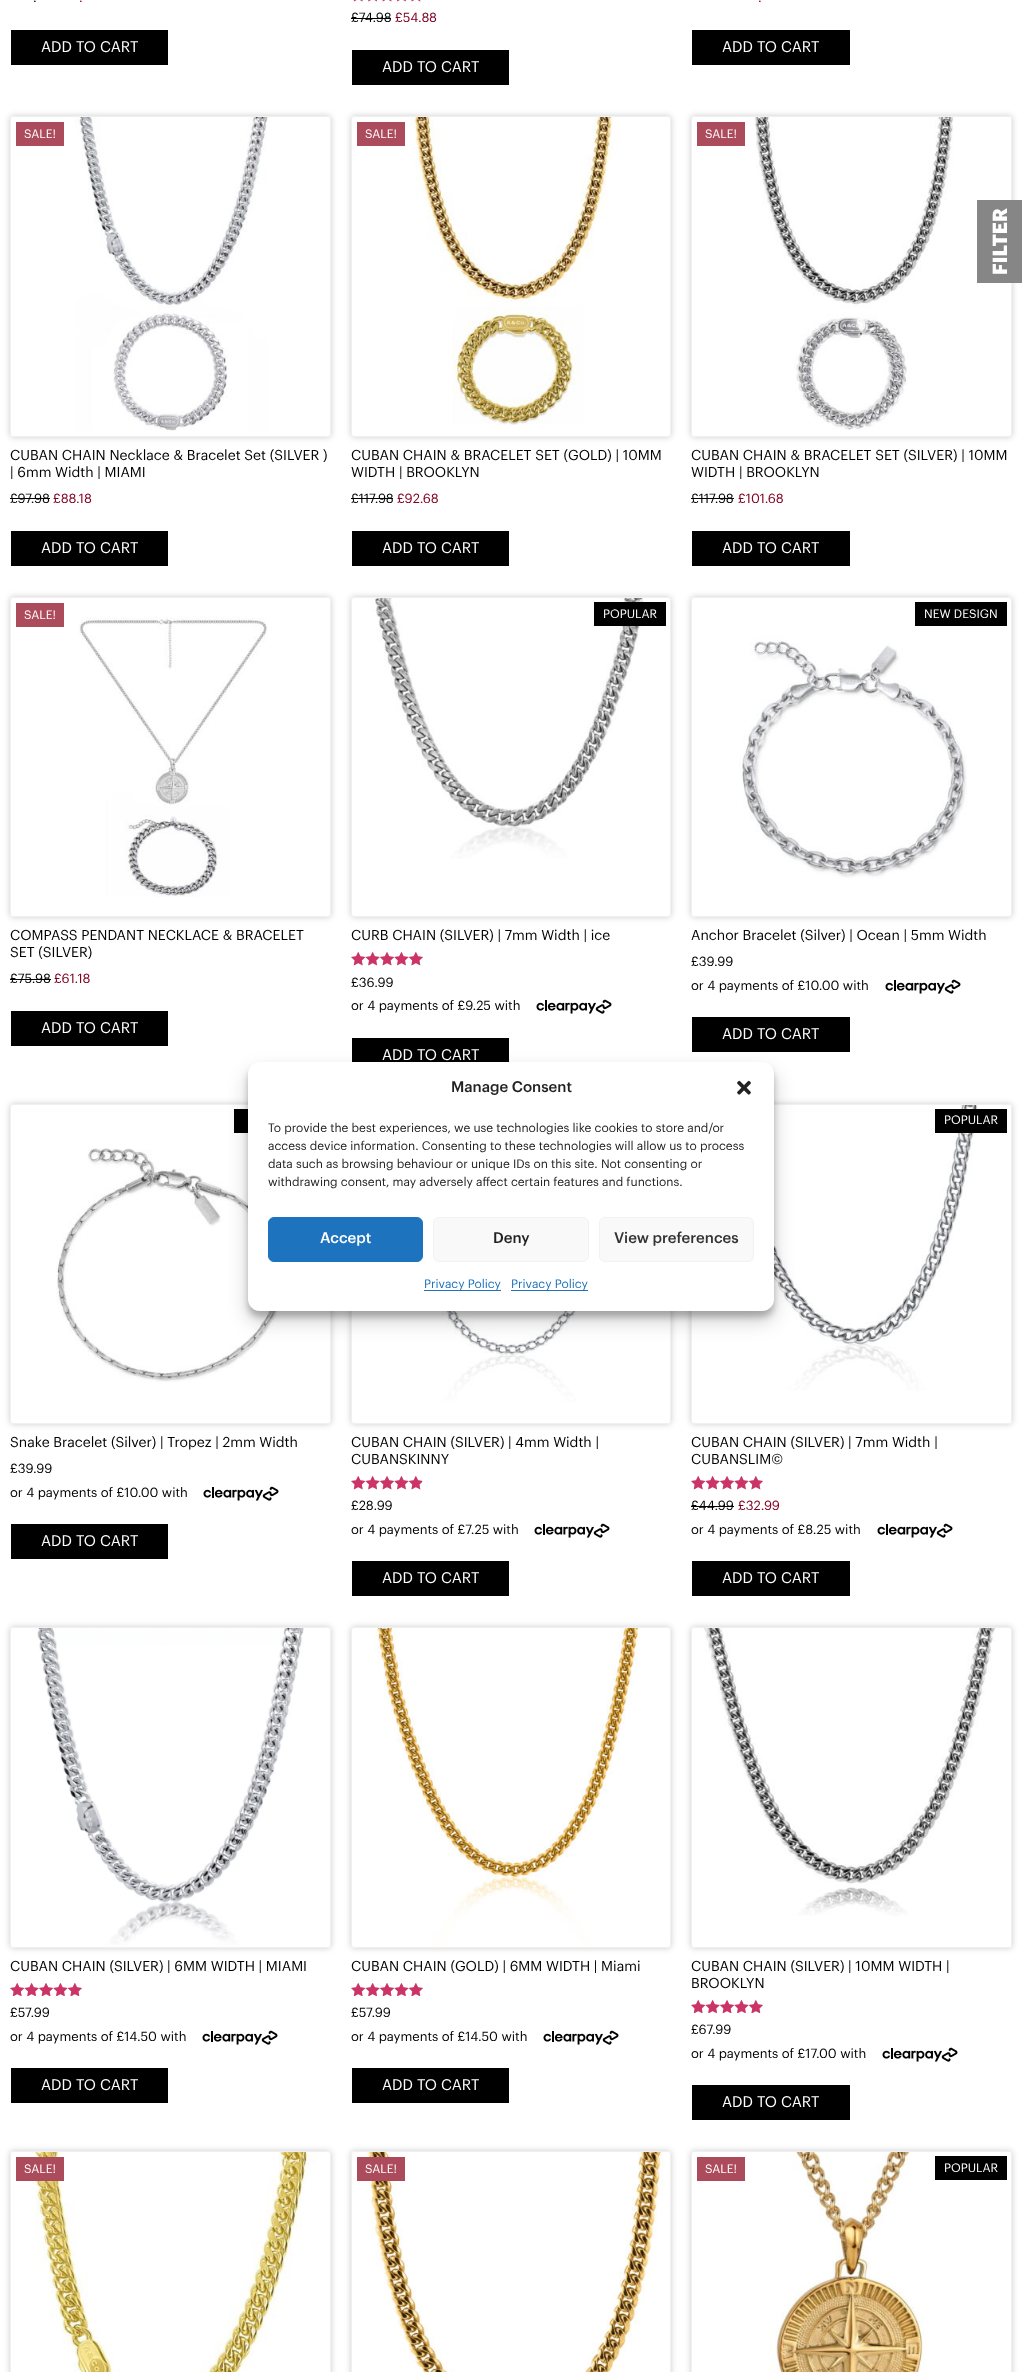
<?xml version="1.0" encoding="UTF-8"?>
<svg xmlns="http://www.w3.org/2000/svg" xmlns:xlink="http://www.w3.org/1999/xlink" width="1022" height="2372">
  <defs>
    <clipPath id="clip1"><path d="M 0 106 h 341 v 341 h -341 z m 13 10 h 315 c 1.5 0 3 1.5 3 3 v 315 c 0 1.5 -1.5 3 -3 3 h -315 c -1.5 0 -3 -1.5 -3 -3 v -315 c 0 -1.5 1.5 -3 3 -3 z" clip-rule="evenodd" /></clipPath>
    <clipPath id="clip2"><path d="M 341 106 h 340 v 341 h -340 z m 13 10 h 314 c 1.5 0 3 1.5 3 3 v 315 c 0 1.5 -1.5 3 -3 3 h -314 c -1.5 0 -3 -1.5 -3 -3 v -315 c 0 -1.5 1.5 -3 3 -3 z" clip-rule="evenodd" /></clipPath>
    <clipPath id="clip3"><path d="M 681 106 h 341 v 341 h -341 z m 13 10 h 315 c 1.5 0 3 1.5 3 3 v 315 c 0 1.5 -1.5 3 -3 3 h -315 c -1.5 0 -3 -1.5 -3 -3 v -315 c 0 -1.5 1.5 -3 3 -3 z" clip-rule="evenodd" /></clipPath>
    <clipPath id="clip4"><path d="M 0 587 h 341 v 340 h -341 z m 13 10 h 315 c 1.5 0 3 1.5 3 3 v 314 c 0 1.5 -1.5 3 -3 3 h -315 c -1.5 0 -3 -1.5 -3 -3 v -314 c 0 -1.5 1.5 -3 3 -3 z" clip-rule="evenodd" /></clipPath>
    <clipPath id="clip5"><path d="M 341 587 h 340 v 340 h -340 z m 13 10 h 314 c 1.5 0 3 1.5 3 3 v 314 c 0 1.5 -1.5 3 -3 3 h -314 c -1.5 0 -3 -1.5 -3 -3 v -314 c 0 -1.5 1.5 -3 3 -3 z" clip-rule="evenodd" /></clipPath>
    <clipPath id="clip6"><path d="M 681 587 h 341 v 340 h -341 z m 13 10 h 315 c 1.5 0 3 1.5 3 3 v 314 c 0 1.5 -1.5 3 -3 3 h -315 c -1.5 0 -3 -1.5 -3 -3 v -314 c 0 -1.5 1.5 -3 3 -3 z" clip-rule="evenodd" /></clipPath>
    <clipPath id="clip7"><path d="M 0 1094 h 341 v 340 h -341 z m 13 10 h 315 c 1.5 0 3 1.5 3 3 v 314 c 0 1.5 -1.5 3 -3 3 h -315 c -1.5 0 -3 -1.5 -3 -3 v -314 c 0 -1.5 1.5 -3 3 -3 z" clip-rule="evenodd" /></clipPath>
    <clipPath id="clip8"><path d="M 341 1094 h 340 v 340 h -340 z m 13 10 h 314 c 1.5 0 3 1.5 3 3 v 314 c 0 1.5 -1.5 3 -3 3 h -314 c -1.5 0 -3 -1.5 -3 -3 v -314 c 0 -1.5 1.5 -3 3 -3 z" clip-rule="evenodd" /></clipPath>
    <clipPath id="clip9"><path d="M 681 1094 h 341 v 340 h -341 z m 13 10 h 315 c 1.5 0 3 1.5 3 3 v 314 c 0 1.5 -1.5 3 -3 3 h -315 c -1.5 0 -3 -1.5 -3 -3 v -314 c 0 -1.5 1.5 -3 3 -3 z" clip-rule="evenodd" /></clipPath>
    <clipPath id="clip10"><path d="M 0 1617 h 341 v 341 h -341 z m 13 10 h 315 c 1.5 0 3 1.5 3 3 v 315 c 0 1.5 -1.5 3 -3 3 h -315 c -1.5 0 -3 -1.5 -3 -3 v -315 c 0 -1.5 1.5 -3 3 -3 z" clip-rule="evenodd" /></clipPath>
    <clipPath id="clip11"><path d="M 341 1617 h 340 v 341 h -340 z m 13 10 h 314 c 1.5 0 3 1.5 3 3 v 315 c 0 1.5 -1.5 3 -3 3 h -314 c -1.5 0 -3 -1.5 -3 -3 v -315 c 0 -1.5 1.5 -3 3 -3 z" clip-rule="evenodd" /></clipPath>
    <clipPath id="clip12"><path d="M 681 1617 h 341 v 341 h -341 z m 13 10 h 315 c 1.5 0 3 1.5 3 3 v 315 c 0 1.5 -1.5 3 -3 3 h -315 c -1.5 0 -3 -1.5 -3 -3 v -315 c 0 -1.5 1.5 -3 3 -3 z" clip-rule="evenodd" /></clipPath>
    <clipPath id="clip13"><path d="M 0 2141 h 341 v 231 h -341 z m 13 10 h 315 c 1.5 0 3 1.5 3 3 v 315 c 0 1.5 -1.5 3 -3 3 h -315 c -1.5 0 -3 -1.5 -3 -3 v -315 c 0 -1.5 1.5 -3 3 -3 z" clip-rule="evenodd" /></clipPath>
    <clipPath id="clip14"><path d="M 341 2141 h 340 v 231 h -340 z m 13 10 h 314 c 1.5 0 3 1.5 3 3 v 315 c 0 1.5 -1.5 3 -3 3 h -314 c -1.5 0 -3 -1.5 -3 -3 v -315 c 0 -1.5 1.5 -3 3 -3 z" clip-rule="evenodd" /></clipPath>
    <clipPath id="clip15"><path d="M 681 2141 h 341 v 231 h -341 z m 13 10 h 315 c 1.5 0 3 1.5 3 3 v 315 c 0 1.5 -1.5 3 -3 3 h -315 c -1.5 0 -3 -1.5 -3 -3 v -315 c 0 -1.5 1.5 -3 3 -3 z" clip-rule="evenodd" /></clipPath>
  </defs>
  <rect width="100%" height="100%" fill="#ffffff" />
  <rect x="11" y="30" width="157" height="35" fill="#000000" />
  <image x="353" y="0" width="68" height="2" xlink:href="image1.png" />
  <image x="353" y="0" width="68" height="2" xlink:href="image2.png" />
  <rect x="351" y="18" width="40" height="1" fill="#000000" />
  <rect x="352" y="50" width="157" height="35" fill="#000000" />
  <rect x="692" y="30" width="158" height="35" fill="#000000" />
  <g clip-path="url(#clip1)">
    <rect x="10" y="116" width="321" height="321" rx="3" fill="#000000" fill-opacity="0.2" filter="blur(3px)" />
  </g>
  <rect x="10.5" y="116.5" width="320" height="320" rx="2.5" fill="none" stroke="#f1f0f0" />
  <image x="75" y="117" width="193" height="314" xlink:href="image3.png" />
  <rect x="16" y="122" width="48" height="24" fill="#ac4b5c" />
  <rect x="10" y="498" width="40" height="1" fill="#000000" />
  <rect x="11" y="531" width="157" height="35" fill="#000000" />
  <g clip-path="url(#clip2)">
    <rect x="351" y="116" width="320" height="321" rx="3" fill="#000000" fill-opacity="0.2" filter="blur(3px)" />
  </g>
  <rect x="351.5" y="116.5" width="319" height="320" rx="2.5" fill="none" stroke="#f1f0f0" />
  <image x="412" y="117" width="207" height="308" xlink:href="image4.png" />
  <rect x="357" y="122" width="48" height="24" fill="#ac4b5c" />
  <rect x="351" y="498" width="42" height="1" fill="#000000" />
  <rect x="352" y="531" width="157" height="35" fill="#000000" />
  <g clip-path="url(#clip3)">
    <rect x="691" y="116" width="321" height="321" rx="3" fill="#000000" fill-opacity="0.2" filter="blur(3px)" />
  </g>
  <rect x="691.5" y="116.5" width="320" height="320" rx="2.5" fill="none" stroke="#f1f0f0" />
  <image x="754" y="117" width="200" height="313" xlink:href="image5.png" />
  <rect x="697" y="122" width="48" height="24" fill="#ac4b5c" />
  <rect x="691" y="498" width="43" height="1" fill="#000000" />
  <rect x="692" y="531" width="158" height="35" fill="#000000" />
  <g clip-path="url(#clip4)">
    <rect x="10" y="597" width="321" height="320" rx="3" fill="#000000" fill-opacity="0.2" filter="blur(3px)" />
  </g>
  <rect x="10.5" y="597.5" width="320" height="319" rx="2.5" fill="none" stroke="#f1f0f0" />
  <image x="78" y="617" width="190" height="280" xlink:href="image6.png" />
  <rect x="16" y="603" width="48" height="24" fill="#ac4b5c" />
  <rect x="10" y="979" width="41" height="1" fill="#000000" />
  <rect x="11" y="1011" width="157" height="35" fill="#000000" />
  <g clip-path="url(#clip5)">
    <rect x="351" y="597" width="320" height="320" rx="3" fill="#000000" fill-opacity="0.2" filter="blur(3px)" />
  </g>
  <rect x="351.5" y="597.5" width="319" height="319" rx="2.5" fill="none" stroke="#f1f0f0" />
  <image x="371" y="598" width="274" height="261" xlink:href="image7.png" />
  <rect x="594" y="602" width="72" height="24" fill="#000000" />
  <image x="351" y="952" width="72" height="14" xlink:href="image8.png" />
  <image x="351" y="952" width="72" height="14" xlink:href="image9.png" />
  <image x="536" y="999" width="76" height="15" xlink:href="image10.png" />
  <rect x="352" y="1038" width="157" height="24" fill="#000000" />
  <g clip-path="url(#clip6)">
    <rect x="691" y="597" width="321" height="320" rx="3" fill="#000000" fill-opacity="0.2" filter="blur(3px)" />
  </g>
  <rect x="691.5" y="597.5" width="320" height="319" rx="2.5" fill="none" stroke="#f1f0f0" />
  <image x="739" y="636" width="228" height="242" xlink:href="image11.png" />
  <rect x="915" y="602" width="92" height="24" fill="#000000" />
  <image x="885" y="979" width="76" height="15" xlink:href="image10.png" />
  <rect x="692" y="1017" width="158" height="35" fill="#000000" />
  <g clip-path="url(#clip7)">
    <rect x="10" y="1104" width="321" height="320" rx="3" fill="#000000" fill-opacity="0.2" filter="blur(3px)" />
  </g>
  <rect x="10.5" y="1104.5" width="320" height="319" rx="2.5" fill="none" stroke="#f1f0f0" />
  <image x="56" y="1148" width="229" height="234" xlink:href="image12.png" />
  <rect x="234" y="1109" width="14" height="24" fill="#000000" />
  <image x="203" y="1486" width="76" height="15" xlink:href="image10.png" />
  <rect x="11" y="1524" width="157" height="35" fill="#000000" />
  <g clip-path="url(#clip8)">
    <rect x="351" y="1104" width="320" height="320" rx="3" fill="#000000" fill-opacity="0.2" filter="blur(3px)" />
  </g>
  <rect x="351.5" y="1104.5" width="319" height="319" rx="2.5" fill="none" stroke="#f1f0f0" />
  <image x="383" y="1311" width="255" height="91" xlink:href="image13.png" />
  <image x="351" y="1476" width="72" height="14" xlink:href="image8.png" />
  <image x="351" y="1476" width="71" height="14" xlink:href="image14.png" />
  <image x="534" y="1523" width="76" height="15" xlink:href="image10.png" />
  <rect x="352" y="1561" width="157" height="35" fill="#000000" />
  <g clip-path="url(#clip9)">
    <rect x="691" y="1104" width="321" height="320" rx="3" fill="#000000" fill-opacity="0.2" filter="blur(3px)" />
  </g>
  <rect x="691.5" y="1104.5" width="320" height="319" rx="2.5" fill="none" stroke="#f1f0f0" />
  <image x="720" y="1105" width="258" height="286" xlink:href="image15.png" />
  <rect x="935" y="1109" width="72" height="24" fill="#000000" />
  <image x="691" y="1476" width="72" height="14" xlink:href="image8.png" />
  <image x="691" y="1476" width="72" height="14" xlink:href="image9.png" />
  <rect x="691" y="1506" width="43" height="1" fill="#000000" />
  <image x="877" y="1523" width="76" height="15" xlink:href="image10.png" />
  <rect x="692" y="1561" width="158" height="35" fill="#000000" />
  <g clip-path="url(#clip10)">
    <rect x="10" y="1627" width="321" height="321" rx="3" fill="#000000" fill-opacity="0.2" filter="blur(3px)" />
  </g>
  <rect x="10.5" y="1627.5" width="320" height="320" rx="2.5" fill="none" stroke="#f1f0f0" />
  <image x="37" y="1628" width="267" height="317" xlink:href="image16.png" />
  <image x="10" y="1983" width="72" height="13" xlink:href="image17.png" />
  <image x="10" y="1983" width="72" height="13" xlink:href="image18.png" />
  <image x="202" y="2030" width="76" height="15" xlink:href="image10.png" />
  <rect x="11" y="2068" width="157" height="35" fill="#000000" />
  <g clip-path="url(#clip11)">
    <rect x="351" y="1627" width="320" height="321" rx="3" fill="#000000" fill-opacity="0.2" filter="blur(3px)" />
  </g>
  <rect x="351.5" y="1627.5" width="319" height="320" rx="2.5" fill="none" stroke="#f1f0f0" />
  <image x="377" y="1628" width="262" height="319" xlink:href="image19.png" />
  <image x="351" y="1983" width="72" height="13" xlink:href="image17.png" />
  <image x="351" y="1983" width="72" height="13" xlink:href="image18.png" />
  <image x="543" y="2030" width="76" height="15" xlink:href="image10.png" />
  <rect x="352" y="2068" width="157" height="35" fill="#000000" />
  <g clip-path="url(#clip12)">
    <rect x="691" y="1627" width="321" height="321" rx="3" fill="#000000" fill-opacity="0.2" filter="blur(3px)" />
  </g>
  <rect x="691.5" y="1627.5" width="320" height="320" rx="2.5" fill="none" stroke="#f1f0f0" />
  <image x="703" y="1628" width="293" height="288" xlink:href="image20.png" />
  <image x="691" y="2000" width="72" height="13" xlink:href="image17.png" />
  <image x="691" y="2000" width="72" height="13" xlink:href="image18.png" />
  <image x="882" y="2047" width="76" height="15" xlink:href="image10.png" />
  <rect x="692" y="2085" width="158" height="35" fill="#000000" />
  <g clip-path="url(#clip13)">
    <rect x="10" y="2151" width="321" height="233" rx="3" fill="#000000" fill-opacity="0.2" filter="blur(3px)" />
  </g>
  <rect x="10.5" y="2151.5" width="320" height="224" rx="2.5" fill="none" stroke="#f1f0f0" />
  <image x="25" y="2152" width="292" height="220" xlink:href="image21.png" />
  <rect x="16" y="2157" width="48" height="24" fill="#ac4b5c" />
  <g clip-path="url(#clip14)">
    <rect x="351" y="2151" width="320" height="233" rx="3" fill="#000000" fill-opacity="0.2" filter="blur(3px)" />
  </g>
  <rect x="351.5" y="2151.5" width="319" height="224" rx="2.5" fill="none" stroke="#f1f0f0" />
  <image x="365" y="2152" width="299" height="220" xlink:href="image22.png" />
  <rect x="357" y="2157" width="48" height="24" fill="#ac4b5c" />
  <g clip-path="url(#clip15)">
    <rect x="691" y="2151" width="321" height="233" rx="3" fill="#000000" fill-opacity="0.2" filter="blur(3px)" />
  </g>
  <rect x="691.5" y="2151.5" width="320" height="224" rx="2.5" fill="none" stroke="#f1f0f0" />
  <image x="769" y="2152" width="156" height="220" xlink:href="image23.png" />
  <rect x="697" y="2157" width="48" height="24" fill="#ac4b5c" />
  <rect x="935" y="2156" width="72" height="24" fill="#000000" />
  <rect x="977" y="200" width="45" height="83" fill="#808080" fill-opacity="0.95" />
  <rect x="248" y="1068" width="526" height="249" rx="12" fill="#000000" fill-opacity="0.23" filter="blur(3px)" />
  <rect x="248" y="1072" width="526" height="249" rx="12" fill="#000000" fill-opacity="0.19" filter="blur(10px)" />
  <rect x="248" y="1062" width="526" height="249" rx="12" fill="#ffffff" />
  <image x="737" y="1080" width="14" height="15" xlink:href="image24.png" />
  <rect x="268.5" y="1217.5" width="154" height="44" rx="5.5" fill="#1e73be" stroke="#1e73be" />
  <rect x="433.5" y="1217.5" width="155" height="44" rx="5.5" fill="#f9f9f9" stroke="#f2f2f2" />
  <rect x="599.5" y="1217.5" width="154" height="44" rx="5.5" fill="#f9f9f9" stroke="#f2f2f2" />
  <rect x="424" y="1290" width="77" height="1" fill="#1e73be" />
  <rect x="511" y="1290" width="77" height="1" fill="#1e73be" />
  <text x="33" y="2" style="font-family: Graphik; font-size: 13px; fill: #000000">.</text>
  <text x="79" y="2" style="font-family: Graphik; font-size: 13px; fill: #800020">.</text>
  <text x="41" y="52" style="font-family: Graphik; font-size: 15px; fill: #ffffff">ADD TO CART</text>
  <text x="351" y="22" style="font-family: Graphik; font-size: 13px; fill: #000000">£74.98</text>
  <text x="395" y="22" style="font-family: Graphik; font-size: 13px; fill: #800020">£54.88</text>
  <text x="382" y="72" style="font-family: Graphik; font-size: 15px; fill: #ffffff">ADD TO CART</text>
  <text x="758" y="2" style="font-family: Graphik; font-size: 13px; fill: #800020">.</text>
  <text x="722" y="52" style="font-family: Graphik; font-size: 15px; fill: #ffffff">ADD TO CART</text>
  <text x="24" y="138" style="font-family: Graphik; font-size: 12px; fill: #ffffff">SALE!</text>
  <text x="10" y="460" style="font-family: Graphik; font-size: 14px; fill: #000000">CUBAN CHAIN Necklace &amp; Bracelet Set (SILVER )</text>
  <text x="10" y="477" style="font-family: Graphik; font-size: 14px; fill: #000000">| 6mm Width | MIAMI</text>
  <text x="10" y="503" style="font-family: Graphik; font-size: 13px; fill: #000000">£97.98</text>
  <text x="53" y="503" style="font-family: Graphik; font-size: 13px; fill: #800020">£88.18</text>
  <text x="41" y="553" style="font-family: Graphik; font-size: 15px; fill: #ffffff">ADD TO CART</text>
  <text x="365" y="138" style="font-family: Graphik; font-size: 12px; fill: #ffffff">SALE!</text>
  <text x="351" y="460" style="font-family: Graphik; font-size: 14px; fill: #000000">CUBAN CHAIN &amp; BRACELET SET (GOLD) | 10MM</text>
  <text x="351" y="477" style="font-family: Graphik; font-size: 14px; fill: #000000">WIDTH | BROOKLYN</text>
  <text x="351" y="503" style="font-family: Graphik; font-size: 13px; fill: #000000">£117.98</text>
  <text x="397" y="503" style="font-family: Graphik; font-size: 13px; fill: #800020">£92.68</text>
  <text x="382" y="553" style="font-family: Graphik; font-size: 15px; fill: #ffffff">ADD TO CART</text>
  <text x="705" y="138" style="font-family: Graphik; font-size: 12px; fill: #ffffff">SALE!</text>
  <text x="691" y="460" style="font-family: Graphik; font-size: 14px; fill: #000000">CUBAN CHAIN &amp; BRACELET SET (SILVER) | 10MM</text>
  <text x="691" y="477" style="font-family: Graphik; font-size: 14px; fill: #000000">WIDTH | BROOKLYN</text>
  <text x="691" y="503" style="font-family: Graphik; font-size: 13px; fill: #000000">£117.98</text>
  <text x="738" y="503" style="font-family: Graphik; font-size: 13px; fill: #800020">£101.68</text>
  <text x="722" y="553" style="font-family: Graphik; font-size: 15px; fill: #ffffff">ADD TO CART</text>
  <text x="24" y="619" style="font-family: Graphik; font-size: 12px; fill: #ffffff">SALE!</text>
  <text x="10" y="940" style="font-family: Graphik; font-size: 14px; fill: #000000">COMPASS PENDANT NECKLACE &amp; BRACELET</text>
  <text x="10" y="957" style="font-family: Graphik; font-size: 14px; fill: #000000">SET (SILVER)</text>
  <text x="10" y="983" style="font-family: Graphik; font-size: 13px; fill: #000000">£75.98</text>
  <text x="54" y="983" style="font-family: Graphik; font-size: 13px; fill: #800020">£61.18</text>
  <text x="41" y="1033" style="font-family: Graphik; font-size: 15px; fill: #ffffff">ADD TO CART</text>
  <text x="603" y="618" style="font-family: Graphik; font-size: 12px; fill: #ffffff">POPULAR</text>
  <text x="351" y="940" style="font-family: Graphik; font-size: 14px; fill: #000000">CURB CHAIN (SILVER) | 7mm Width | ice</text>
  <text x="351" y="987" style="font-family: Graphik; font-size: 13px; fill: #000000">£36.99</text>
  <text x="351" y="1010" style="font-family: Graphik; font-size: 13px; fill: #000000">or 4 payments of £9.25 with</text>
  <text x="382" y="1060" style="font-family: Graphik; font-size: 15px; fill: #ffffff">ADD TO CART</text>
  <text x="924" y="618" style="font-family: Graphik; font-size: 12px; fill: #ffffff">NEW DESIGN</text>
  <text x="691" y="940" style="font-family: Graphik; font-size: 14px; fill: #000000">Anchor Bracelet (Silver) | Ocean | 5mm Width</text>
  <text x="691" y="966" style="font-family: Graphik; font-size: 13px; fill: #000000">£39.99</text>
  <text x="691" y="990" style="font-family: Graphik; font-size: 13px; fill: #000000">or 4 payments of £10.00 with</text>
  <text x="722" y="1039" style="font-family: Graphik; font-size: 15px; fill: #ffffff">ADD TO CART</text>
  <text x="10" y="1447" style="font-family: Graphik; font-size: 14px; fill: #000000">Snake Bracelet (Silver) | Tropez | 2mm Width</text>
  <text x="10" y="1473" style="font-family: Graphik; font-size: 13px; fill: #000000">£39.99</text>
  <text x="10" y="1497" style="font-family: Graphik; font-size: 13px; fill: #000000">or 4 payments of £10.00 with</text>
  <text x="41" y="1546" style="font-family: Graphik; font-size: 15px; fill: #ffffff">ADD TO CART</text>
  <text x="351" y="1447" style="font-family: Graphik; font-size: 14px; fill: #000000">CUBAN CHAIN (SILVER) | 4mm Width |</text>
  <text x="351" y="1464" style="font-family: Graphik; font-size: 14px; fill: #000000">CUBANSKINNY</text>
  <text x="351" y="1510" style="font-family: Graphik; font-size: 13px; fill: #000000">£28.99</text>
  <text x="351" y="1534" style="font-family: Graphik; font-size: 13px; fill: #000000">or 4 payments of £7.25 with</text>
  <text x="382" y="1583" style="font-family: Graphik; font-size: 15px; fill: #ffffff">ADD TO CART</text>
  <text x="944" y="1124" style="font-family: Graphik; font-size: 12px; fill: #ffffff">POPULAR</text>
  <text x="691" y="1447" style="font-family: Graphik; font-size: 14px; fill: #000000">CUBAN CHAIN (SILVER) | 7mm Width |</text>
  <text x="691" y="1464" style="font-family: Graphik; font-size: 14px; fill: #000000">CUBANSLIM©</text>
  <text x="691" y="1510" style="font-family: Graphik; font-size: 13px; fill: #000000">£44.99</text>
  <text x="738" y="1510" style="font-family: Graphik; font-size: 13px; fill: #800020">£32.99</text>
  <text x="691" y="1534" style="font-family: Graphik; font-size: 13px; fill: #000000">or 4 payments of £8.25 with</text>
  <text x="722" y="1583" style="font-family: Graphik; font-size: 15px; fill: #ffffff">ADD TO CART</text>
  <text x="10" y="1971" style="font-family: Graphik; font-size: 14px; fill: #000000">CUBAN CHAIN (SILVER) | 6MM WIDTH | MIAMI</text>
  <text x="10" y="2017" style="font-family: Graphik; font-size: 13px; fill: #000000">£57.99</text>
  <text x="10" y="2041" style="font-family: Graphik; font-size: 13px; fill: #000000">or 4 payments of £14.50 with</text>
  <text x="41" y="2090" style="font-family: Graphik; font-size: 15px; fill: #ffffff">ADD TO CART</text>
  <text x="351" y="1971" style="font-family: Graphik; font-size: 14px; fill: #000000">CUBAN CHAIN (GOLD) | 6MM WIDTH | Miami</text>
  <text x="351" y="2017" style="font-family: Graphik; font-size: 13px; fill: #000000">£57.99</text>
  <text x="351" y="2041" style="font-family: Graphik; font-size: 13px; fill: #000000">or 4 payments of £14.50 with</text>
  <text x="382" y="2090" style="font-family: Graphik; font-size: 15px; fill: #ffffff">ADD TO CART</text>
  <text x="691" y="1971" style="font-family: Graphik; font-size: 14px; fill: #000000">CUBAN CHAIN (SILVER) | 10MM WIDTH |</text>
  <text x="691" y="1988" style="font-family: Graphik; font-size: 14px; fill: #000000">BROOKLYN</text>
  <text x="691" y="2034" style="font-family: Graphik; font-size: 13px; fill: #000000">£67.99</text>
  <text x="691" y="2058" style="font-family: Graphik; font-size: 13px; fill: #000000">or 4 payments of £17.00 with</text>
  <text x="722" y="2107" style="font-family: Graphik; font-size: 15px; fill: #ffffff">ADD TO CART</text>
  <text x="24" y="2173" style="font-family: Graphik; font-size: 12px; fill: #ffffff">SALE!</text>
  <text x="365" y="2173" style="font-family: Graphik; font-size: 12px; fill: #ffffff">SALE!</text>
  <text x="705" y="2173" style="font-family: Graphik; font-size: 12px; fill: #ffffff">SALE!</text>
  <text x="944" y="2172" style="font-family: Graphik; font-size: 12px; fill: #ffffff">POPULAR</text>
  <text x="1007" y="275" transform="rotate(-90 1007 275)" style="font-family: Graphik; font-size: 20px; font-weight: bold; fill: #ffffff">FILTER</text>
  <text x="451" y="1092" style="font-family: Graphik; font-size: 15px; font-weight: 500; fill: #222222">Manage Consent</text>
  <text x="268" y="1132" style="font-family: Graphik; font-size: 12px; fill: #222222">To provide the best experiences, we use technologies like cookies to store and/or</text>
  <text x="268" y="1150" style="font-family: Graphik; font-size: 12px; fill: #222222">access device information. Consenting to these technologies will allow us to process</text>
  <text x="268" y="1168" style="font-family: Graphik; font-size: 12px; fill: #222222">data such as browsing behaviour or unique IDs on this site. Not consenting or</text>
  <text x="268" y="1186" style="font-family: Graphik; font-size: 12px; fill: #222222">withdrawing consent, may adversely affect certain features and functions.</text>
  <text x="320" y="1243" style="font-family: Graphik; font-size: 15px; font-weight: 500; fill: #ffffff">Accept</text>
  <text x="493" y="1243" style="font-family: Graphik; font-size: 15px; font-weight: 500; fill: #222222">Deny</text>
  <text x="614" y="1243" style="font-family: Graphik; font-size: 15px; font-weight: 500; fill: #333333">View preferences</text>
  <text x="424" y="1288" style="font-family: Graphik; font-size: 12px; fill: #1e73be">Privacy Policy</text>
  <text x="511" y="1288" style="font-family: Graphik; font-size: 12px; fill: #1e73be">Privacy Policy</text>
</svg>
